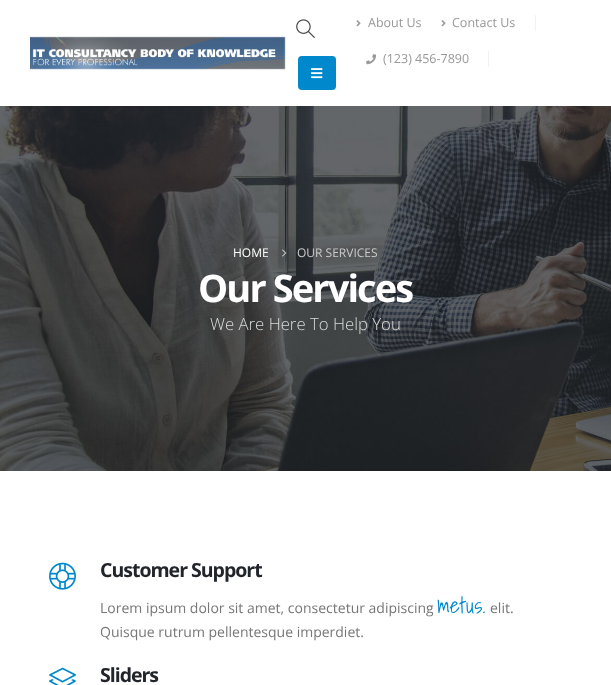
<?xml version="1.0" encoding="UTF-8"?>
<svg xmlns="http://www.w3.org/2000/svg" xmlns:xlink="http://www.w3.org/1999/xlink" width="611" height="685">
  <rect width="100%" height="100%" fill="#ffffff" />
  <image x="30" y="36" width="256" height="34" xlink:href="image1.png" />
  <image x="296" y="19" width="19" height="19" xlink:href="image2.png" />
  <rect x="298" y="56" width="38" height="34" rx="4" fill="#0088cc" />
  <image x="311" y="68" width="12" height="11" xlink:href="image3.png" />
  <image x="356" y="20" width="5" height="7" xlink:href="image4.png" />
  <image x="441" y="20" width="5" height="7" xlink:href="image4.png" />
  <rect x="535" y="15" width="1" height="16" fill="#f2f2f2" />
  <image x="366" y="54" width="11" height="11" xlink:href="image5.png" />
  <rect x="488" y="51" width="1" height="16" fill="#f2f2f2" />
  <image x="0" y="106" width="611" height="365" xlink:href="image6.png" />
  <image x="282" y="249" width="5" height="8" xlink:href="image7.png" />
  <image x="49" y="562" width="27" height="28" xlink:href="image8.png" />
  <image x="49" y="667" width="27" height="18" xlink:href="image9.png" />
  <text x="368" y="27" style="font-family: Open Sans; font-size: 12.5px; fill: #999999">About Us</text>
  <text x="452" y="27" style="font-family: Open Sans; font-size: 12.5px; fill: #999999">Contact Us</text>
  <text x="383" y="63" style="font-family: Open Sans; font-size: 12.5px; fill: #999999">(123) 456-7890</text>
  <text x="233" y="257" style="font-family: Open Sans; font-size: 12px; fill: #ffffff">HOME</text>
  <text x="297" y="257" style="font-family: Open Sans; font-size: 12px; fill: #cacacb">OUR SERVICES</text>
  <text x="198" y="302" style="font-family: Open Sans; font-size: 38px; font-weight: bold; letter-spacing: -1.9px; fill: #ffffff">Our Services</text>
  <text x="210" y="330" style="font-family: Open Sans; font-size: 16.75px; font-weight: 300; fill: #d9dada">We Are Here To Help You</text>
  <text x="100" y="577" style="font-family: Open Sans; font-size: 19.5px; font-weight: bold; letter-spacing: -1px; fill: #212529">Customer Support</text>
  <text x="100" y="613" style="font-family: Open Sans; font-size: 14px; fill: #777777">Lorem ipsum dolor sit amet, consectetur adipiscing</text>
  <text x="437" y="613" style="font-family: Shadows Into Light; font-size: 22px; fill: #0088cc">metus.</text>
  <text x="490" y="613" style="font-family: Open Sans; font-size: 14px; fill: #777777">elit.</text>
  <text x="100" y="637" style="font-family: Open Sans; font-size: 14px; fill: #777777">Quisque rutrum pellentesque imperdiet.</text>
  <text x="100" y="682" style="font-family: Open Sans; font-size: 19.5px; font-weight: bold; letter-spacing: -1px; fill: #212529">Sliders</text>
</svg>
